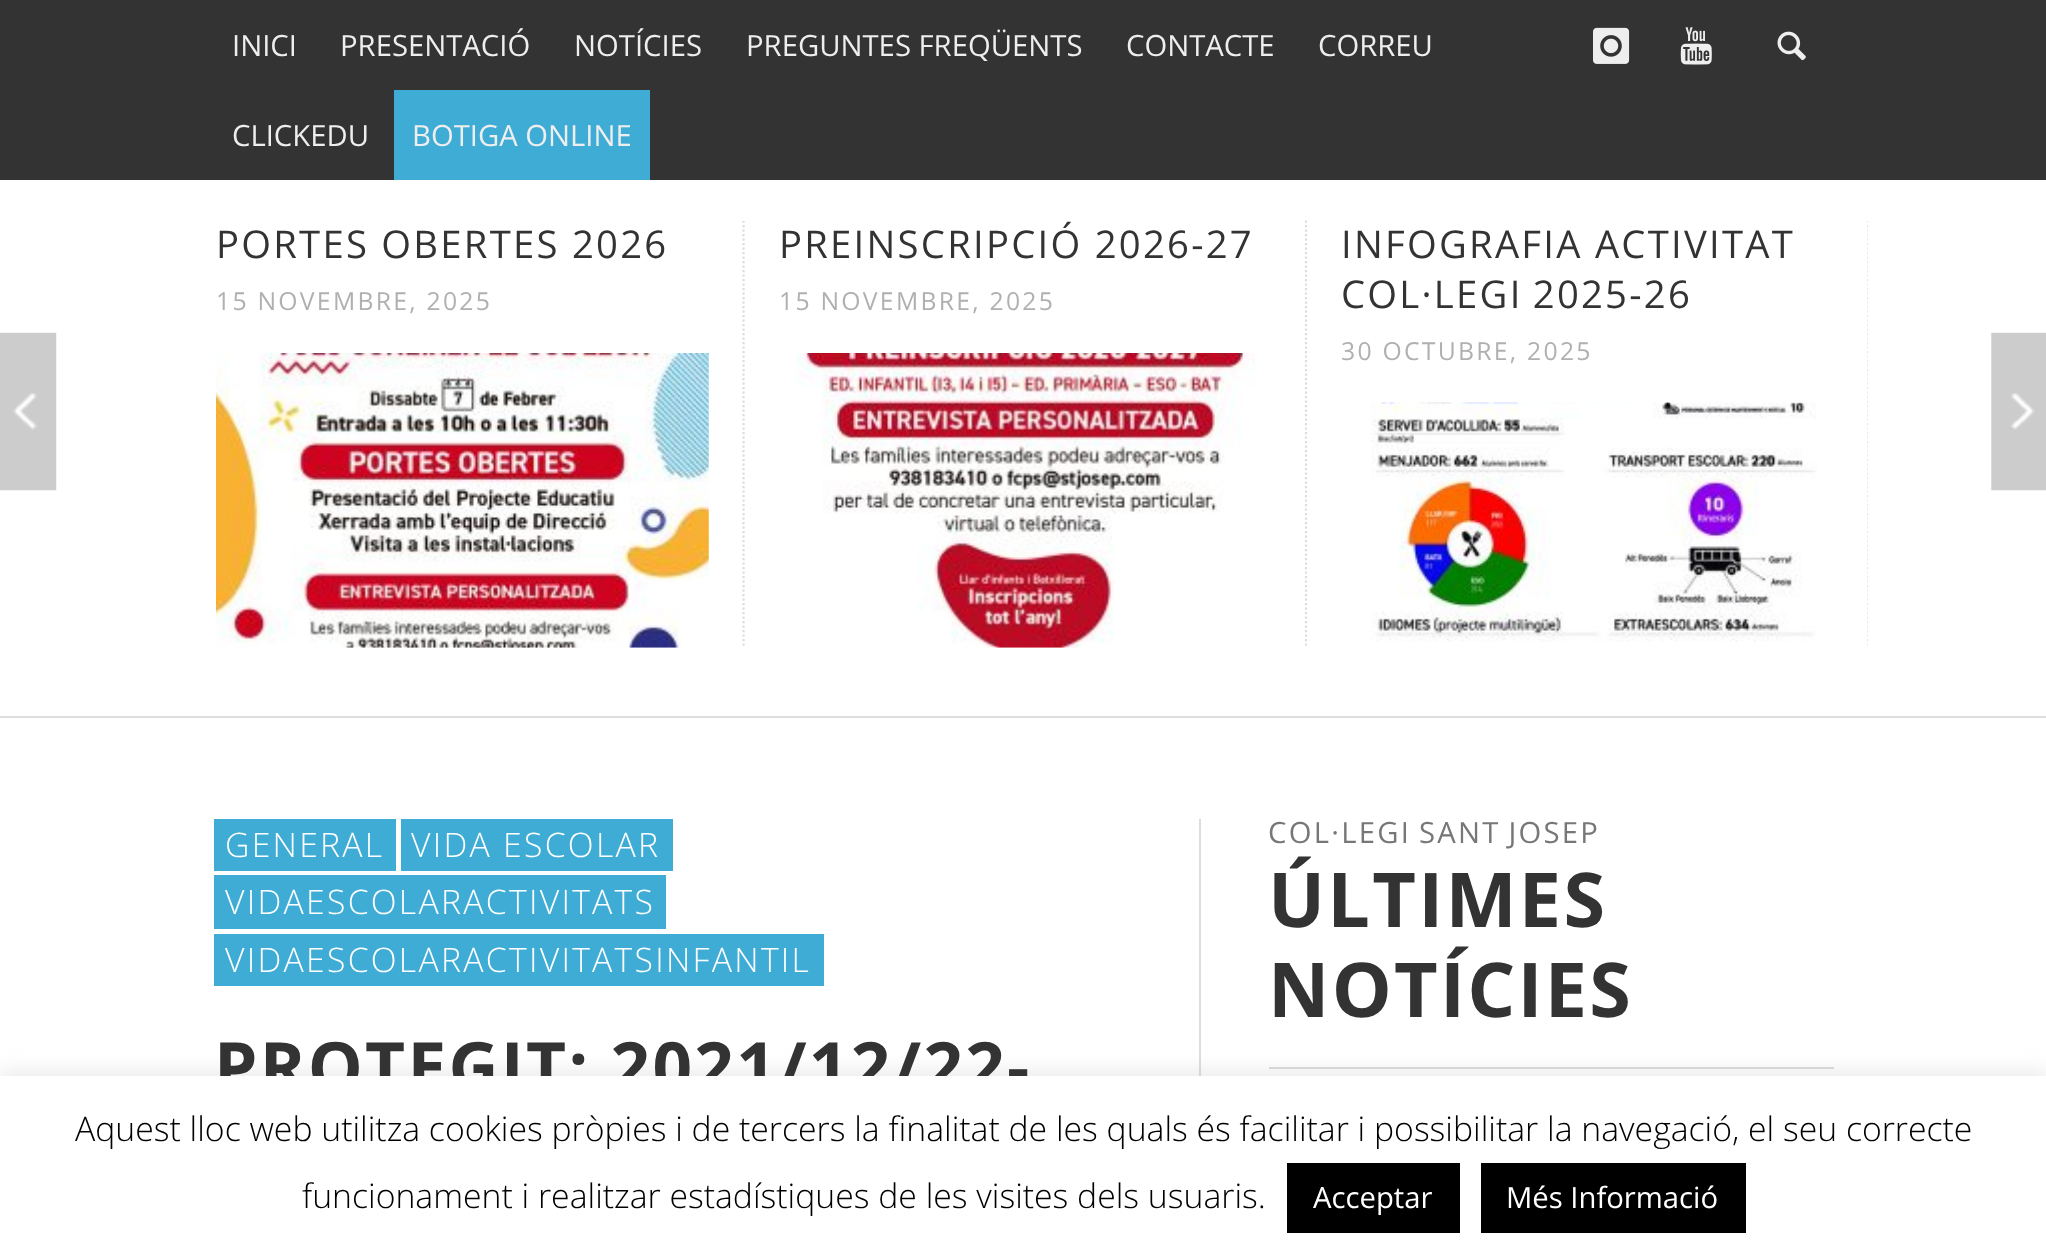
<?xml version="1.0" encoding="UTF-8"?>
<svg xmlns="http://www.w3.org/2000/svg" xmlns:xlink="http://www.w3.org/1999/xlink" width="2046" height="1258">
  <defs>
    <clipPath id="clip1"><rect x="180" y="221" width="1688" height="427" /></clipPath>
  </defs>
  <rect width="100%" height="100%" fill="#ffffff" />
  <rect width="2046" height="180" fill="#333333" />
  <rect x="394" y="90" width="256" height="90" fill="#3facd6" />
  <image x="1593" y="27" width="37" height="37" xlink:href="image1.png" />
  <image x="1680" y="27" width="32" height="38" xlink:href="image2.png" />
  <image x="1777" y="31" width="29" height="30" xlink:href="image3.png" />
  <rect y="716" width="2046" height="2" fill="#dddddd" />
  <image x="216" y="353" width="493" height="295" xlink:href="image4.png" />
  <g clip-path="url(#clip1)">
    <path d="M 743.5 220.5 v 427.5" fill="none" stroke="#dddddd" stroke-width="2.2" stroke-dasharray="2.25 2.25" />
  </g>
  <image x="795" y="353" width="462" height="295" xlink:href="image5.png" />
  <path d="M 1306 220.5 v 427.5" fill="none" stroke="#dddddd" stroke-width="2.2" stroke-dasharray="2.25 2.25" />
  <image x="1371" y="402" width="446" height="240" xlink:href="image6.png" />
  <g clip-path="url(#clip1)">
    <path d="M 1868.5 220.5 v 427.5" fill="none" stroke="#dddddd" stroke-width="2.2" stroke-dasharray="2.25 2.25" />
  </g>
  <image x="0" y="332" width="57" height="159" xlink:href="image7.png" />
  <image x="1991" y="332" width="55" height="159" xlink:href="image8.png" />
  <rect x="214" y="819" width="182" height="52" fill="#3facd6" />
  <rect x="401" y="819" width="272" height="52" fill="#3facd6" />
  <rect x="214" y="875" width="452" height="54" fill="#3facd6" />
  <rect x="214" y="934" width="610" height="52" fill="#3facd6" />
  <rect x="1199" y="819" width="2" height="257" fill="#dddddd" />
  <rect x="1269" y="1067" width="565" height="2" fill="#dbdbdb" />
  <rect y="1073" width="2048" height="185" fill="#acabab" fill-opacity="0.3" filter="blur(11px)" />
  <text x="232" y="56" style="font-family: Open Sans; font-size: 29.25px; fill: #eeeeee">INICI</text>
  <text x="340" y="56" style="font-family: Open Sans; font-size: 29.25px; fill: #eeeeee">PRESENTACIÓ</text>
  <text x="574" y="56" style="font-family: Open Sans; font-size: 29.25px; fill: #eeeeee">NOTÍCIES</text>
  <text x="746" y="56" style="font-family: Open Sans; font-size: 29.25px; fill: #eeeeee">PREGUNTES FREQÜENTS</text>
  <text x="1126" y="56" style="font-family: Open Sans; font-size: 29.25px; fill: #eeeeee">CONTACTE</text>
  <text x="1318" y="56" style="font-family: Open Sans; font-size: 29.25px; fill: #eeeeee">CORREU</text>
  <text x="232" y="146" style="font-family: Open Sans; font-size: 29.25px; fill: #eeeeee">CLICKEDU</text>
  <text x="412" y="146" style="font-family: Open Sans; font-size: 29.25px; fill: #eeeeee">BOTIGA ONLINE</text>
  <text x="216" y="258" style="font-family: Open Sans; font-size: 38.25px; letter-spacing: 2.25px; fill: #333333">PORTES OBERTES 2026</text>
  <text x="216" y="310" style="font-family: Open Sans; font-size: 24.75px; letter-spacing: 2.25px; fill: #b0b0b0">15 NOVEMBRE, 2025</text>
  <text x="779" y="258" style="font-family: Open Sans; font-size: 38.25px; letter-spacing: 2.25px; fill: #333333">PREINSCRIPCIÓ 2026-27</text>
  <text x="779" y="310" style="font-family: Open Sans; font-size: 24.75px; letter-spacing: 2.25px; fill: #b0b0b0">15 NOVEMBRE, 2025</text>
  <text x="1341" y="258" style="font-family: Open Sans; font-size: 38.25px; letter-spacing: 2.25px; fill: #333333">INFOGRAFIA ACTIVITAT</text>
  <text x="1341" y="308" word-spacing="-2" style="font-family: Open Sans; font-size: 38.25px; letter-spacing: 2.25px; fill: #333333">COL·LEGI 2025-26</text>
  <text x="1341" y="360" style="font-family: Open Sans; font-size: 24.75px; letter-spacing: 2.25px; fill: #b0b0b0">30 OCTUBRE, 2025</text>
  <text x="225" y="857" style="font-family: Open Sans; font-size: 33.75px; font-weight: 300; letter-spacing: 2.25px; fill: #ffffff">GENERAL</text>
  <text x="411" y="857" style="font-family: Open Sans; font-size: 33.75px; font-weight: 300; letter-spacing: 2.25px; fill: #ffffff">VIDA ESCOLAR</text>
  <text x="225" y="914" style="font-family: Open Sans; font-size: 33.75px; font-weight: 300; letter-spacing: 2.25px; fill: #ffffff">VIDAESCOLARACTIVITATS</text>
  <text x="225" y="972" style="font-family: Open Sans; font-size: 33.75px; font-weight: 300; letter-spacing: 2.25px; fill: #ffffff">VIDAESCOLARACTIVITATSINFANTIL</text>
  <text x="214" y="1092" style="font-family: Open Sans; font-size: 69.25px; font-weight: bold; letter-spacing: 2.25px; fill: #333333">PROTEGIT: 2021/12/22-</text>
  <text x="1268" y="843" word-spacing="-2" style="font-family: Open Sans; font-size: 29.25px; letter-spacing: 2.25px; fill: #777777">COL·LEGI SANT JOSEP</text>
  <text x="1268" y="927" style="font-family: Open Sans; font-size: 75.5px; font-weight: bold; letter-spacing: 2.25px; fill: #333333">ÚLTIMES</text>
  <text x="1268" y="1017" style="font-family: Open Sans; font-size: 75.5px; font-weight: bold; letter-spacing: 2.25px; fill: #333333">NOTÍCIES</text>
  <rect y="1076" width="2046" height="182" fill="#ffffff" />
  <text x="75" y="1141" style="font-family: Open Sans; font-size: 33.75px; font-weight: 300; fill: #000000">Aquest lloc web utilitza cookies pròpies i de tercers la finalitat de les quals és facilitar i possibilitar la navegació, el seu correcte</text>
  <text x="302" y="1208" style="font-family: Open Sans; font-size: 33.75px; font-weight: 300; fill: #000000">funcionament i realitzar estadístiques de les visites dels usuaris.</text>
  <rect x="1287" y="1163" width="173" height="70" fill="#000000" />
  <text x="1313" y="1208" style="font-family: Open Sans; font-size: 29.25px; fill: #ffffff">Acceptar</text>
  <rect x="1481" y="1163" width="265" height="70" fill="#000000" />
  <text x="1506" y="1208" style="font-family: Open Sans; font-size: 29.25px; fill: #ffffff">Més Informació</text>
</svg>
